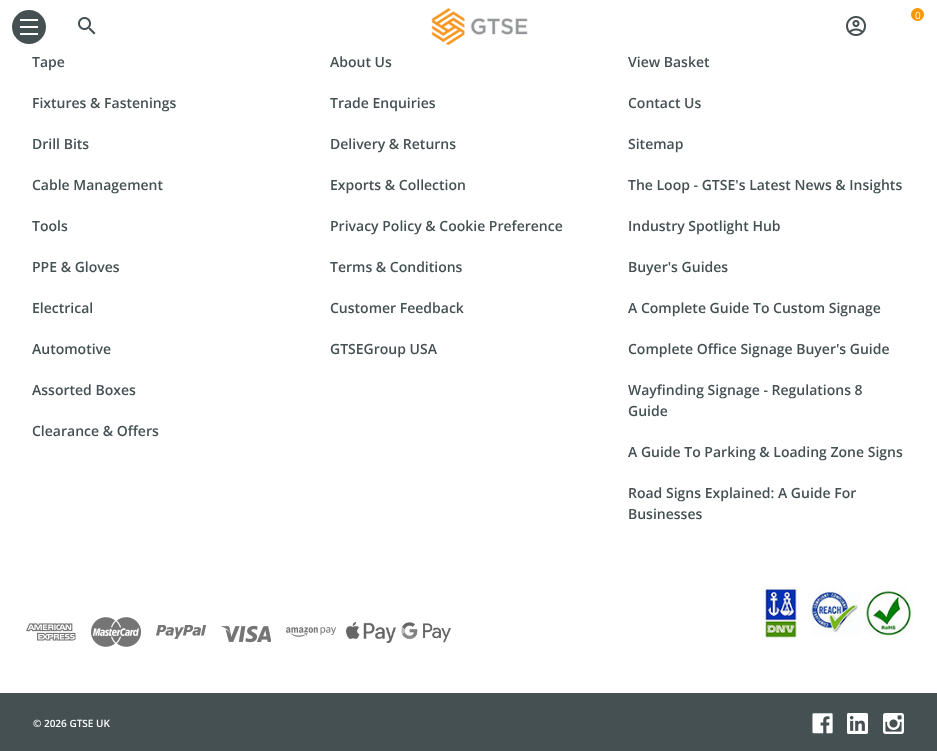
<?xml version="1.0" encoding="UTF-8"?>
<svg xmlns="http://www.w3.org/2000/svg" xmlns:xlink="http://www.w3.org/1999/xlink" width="937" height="751">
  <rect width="100%" height="100%" fill="#ffffff" />
  <circle cx="29" cy="27" r="17" fill="#455053" />
  <rect x="20" y="26" width="18" height="2" fill="#ffffff" />
  <rect x="20" y="19" width="18" height="2" fill="#ffffff" />
  <rect x="20" y="33" width="18" height="2" fill="#ffffff" />
  <image x="431" y="8" width="97" height="37" xlink:href="image1.png" />
  <image x="846" y="16" width="20" height="20" xlink:href="image2.png" />
  <circle cx="917.5" cy="14.5" r="6.5" fill="#fb9500" />
  <image x="78" y="17" width="18" height="18" xlink:href="image3.png" />
  <image x="26" y="623" width="50" height="18" xlink:href="image4.png" />
  <image x="91" y="617" width="50" height="30" xlink:href="image5.png" />
  <image x="156" y="625" width="50" height="14" xlink:href="image6.png" />
  <image x="221" y="625" width="50" height="18" xlink:href="image7.png" />
  <image x="286" y="627" width="50" height="10" xlink:href="image8.png" />
  <image x="346" y="622" width="50" height="21" xlink:href="image9.png" />
  <image x="401" y="622" width="50" height="21" xlink:href="image10.png" />
  <image x="761" y="586" width="152" height="54" xlink:href="image11.png" />
  <rect y="693" width="937" height="58" fill="#455053" />
  <image x="812" y="713" width="21" height="21" xlink:href="image12.png" />
  <image x="847" y="713" width="21" height="21" xlink:href="image13.png" />
  <image x="883" y="713" width="21" height="21" xlink:href="image14.png" />
  <text x="915" y="19" style="font-family: Open Sans; font-size: 10px; fill: #ffffff">0</text>
  <text x="32" y="67" style="font-family: Open Sans; font-size: 14px; font-weight: 600; fill: #455053">Tape</text>
  <text x="32" y="108" style="font-family: Open Sans; font-size: 14px; font-weight: 600; fill: #455053">Fixtures &amp; Fastenings</text>
  <text x="32" y="149" style="font-family: Open Sans; font-size: 14px; font-weight: 600; fill: #455053">Drill Bits</text>
  <text x="32" y="190" style="font-family: Open Sans; font-size: 14px; font-weight: 600; fill: #455053">Cable Management</text>
  <text x="32" y="231" style="font-family: Open Sans; font-size: 14px; font-weight: 600; fill: #455053">Tools</text>
  <text x="32" y="272" style="font-family: Open Sans; font-size: 14px; font-weight: 600; fill: #455053">PPE &amp; Gloves</text>
  <text x="32" y="313" style="font-family: Open Sans; font-size: 14px; font-weight: 600; fill: #455053">Electrical</text>
  <text x="32" y="354" style="font-family: Open Sans; font-size: 14px; font-weight: 600; fill: #455053">Automotive</text>
  <text x="32" y="395" style="font-family: Open Sans; font-size: 14px; font-weight: 600; fill: #455053">Assorted Boxes</text>
  <text x="32" y="436" style="font-family: Open Sans; font-size: 14px; font-weight: 600; fill: #455053">Clearance &amp; Offers</text>
  <text x="330" y="67" style="font-family: Open Sans; font-size: 14px; font-weight: 600; fill: #455053">About Us</text>
  <text x="330" y="108" style="font-family: Open Sans; font-size: 14px; font-weight: 600; fill: #455053">Trade Enquiries</text>
  <text x="330" y="149" style="font-family: Open Sans; font-size: 14px; font-weight: 600; fill: #455053">Delivery &amp; Returns</text>
  <text x="330" y="190" style="font-family: Open Sans; font-size: 14px; font-weight: 600; fill: #455053">Exports &amp; Collection</text>
  <text x="330" y="231" style="font-family: Open Sans; font-size: 14px; font-weight: 600; fill: #455053">Privacy Policy &amp; Cookie Preference</text>
  <text x="330" y="272" style="font-family: Open Sans; font-size: 14px; font-weight: 600; fill: #455053">Terms &amp; Conditions</text>
  <text x="330" y="313" style="font-family: Open Sans; font-size: 14px; font-weight: 600; fill: #455053">Customer Feedback</text>
  <text x="330" y="354" style="font-family: Open Sans; font-size: 14px; font-weight: 600; fill: #455053">GTSEGroup USA</text>
  <text x="628" y="67" style="font-family: Open Sans; font-size: 14px; font-weight: 600; fill: #455053">View Basket</text>
  <text x="628" y="108" style="font-family: Open Sans; font-size: 14px; font-weight: 600; fill: #455053">Contact Us</text>
  <text x="628" y="149" style="font-family: Open Sans; font-size: 14px; font-weight: 600; fill: #455053">Sitemap</text>
  <text x="628" y="190" style="font-family: Open Sans; font-size: 14px; font-weight: 600; fill: #455053">The Loop - GTSE's Latest News &amp; Insights</text>
  <text x="628" y="231" style="font-family: Open Sans; font-size: 14px; font-weight: 600; fill: #455053">Industry Spotlight Hub</text>
  <text x="628" y="272" style="font-family: Open Sans; font-size: 14px; font-weight: 600; fill: #455053">Buyer's Guides</text>
  <text x="628" y="313" style="font-family: Open Sans; font-size: 14px; font-weight: 600; fill: #455053">A Complete Guide To Custom Signage</text>
  <text x="628" y="354" style="font-family: Open Sans; font-size: 14px; font-weight: 600; fill: #455053">Complete Office Signage Buyer's Guide</text>
  <text x="628" y="395" style="font-family: Open Sans; font-size: 14px; font-weight: 600; fill: #455053">Wayfinding Signage - Regulations 8</text>
  <text x="628" y="416" style="font-family: Open Sans; font-size: 14px; font-weight: 600; fill: #455053">Guide</text>
  <text x="628" y="457" style="font-family: Open Sans; font-size: 14px; font-weight: 600; fill: #455053">A Guide To Parking &amp; Loading Zone Signs</text>
  <text x="628" y="498" style="font-family: Open Sans; font-size: 14px; font-weight: 600; fill: #455053">Road Signs Explained: A Guide For</text>
  <text x="628" y="519" style="font-family: Open Sans; font-size: 14px; font-weight: 600; fill: #455053">Businesses</text>
  <text x="33" y="727" style="font-family: Open Sans; font-size: 10px; font-weight: 600; fill: #ffffff">© 2026 GTSE UK</text>
</svg>
